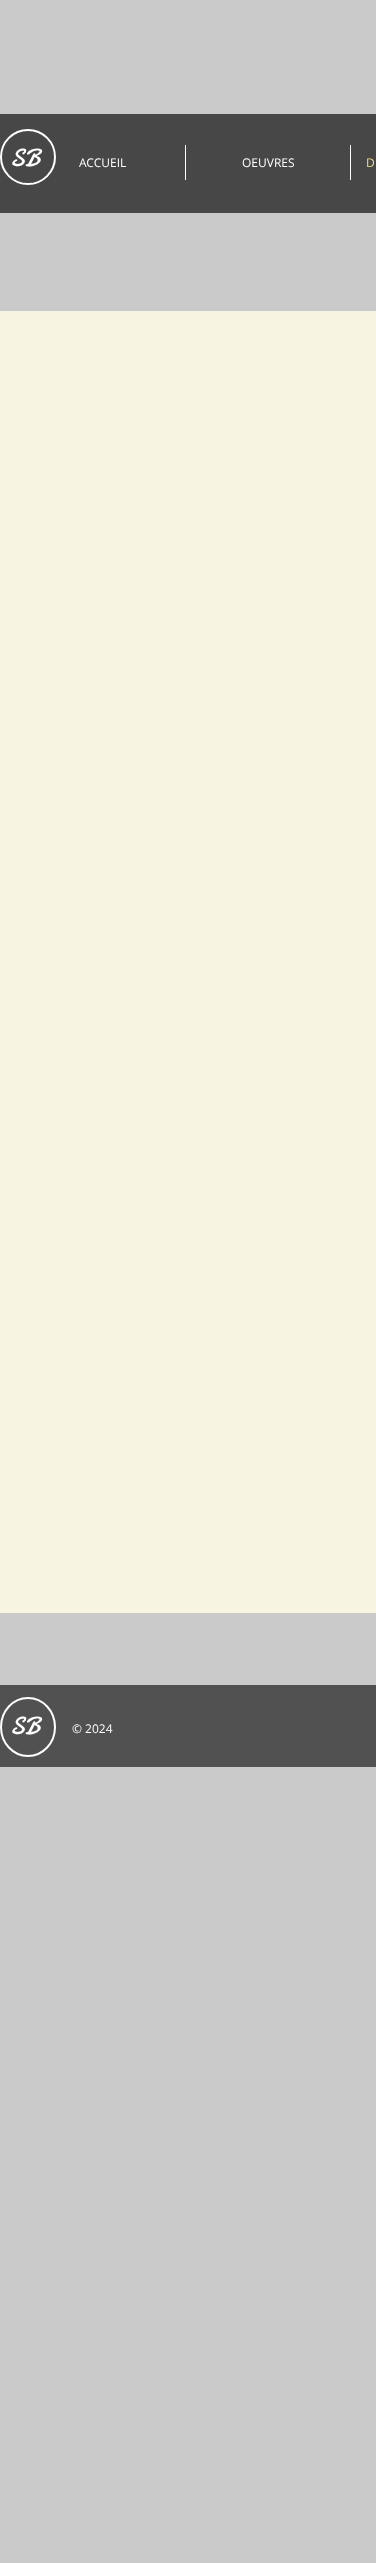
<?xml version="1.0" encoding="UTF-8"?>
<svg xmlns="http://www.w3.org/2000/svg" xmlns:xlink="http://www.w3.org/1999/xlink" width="376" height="2563">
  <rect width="100%" height="100%" fill="#cacaca" />
  <rect y="114" width="376" height="99" fill="#474747" />
  <circle cx="28" cy="157" r="27" fill="none" stroke="#ffffff" stroke-width="2" />
  <rect x="185" y="145" width="1" height="35" fill="#ffffff" />
  <rect x="350" y="145" width="1" height="35" fill="#ffffff" />
  <rect y="311" width="376" height="1302" fill="#f7f5e1" />
  <rect y="1685" width="376" height="82" fill="#515151" />
  <path d="M 28 1698 c 15 0 27 13 27 29 c 0 16 -12 29 -27 29 c -15 0 -27 -13 -27 -29 c 0 -16 12 -29 27 -29 z" fill="none" stroke="#ffffff" stroke-width="2" />
  <text x="10" y="166" style="font-family: Damion; font-size: 25px; fill: #ffffff">SB</text>
  <text x="79" y="167" style="font-family: Open Sans; font-size: 12px; fill: #ffffff">ACCUEIL</text>
  <text x="242" y="167" style="font-family: Open Sans; font-size: 12px; fill: #ffffff">OEUVRES</text>
  <text x="366" y="167" style="font-family: Open Sans; font-size: 12px; fill: #efdd8d">D</text>
  <text x="10" y="1734" style="font-family: Damion; font-size: 25px; fill: #ffffff">SB</text>
  <text x="72" y="1733" style="font-family: Open Sans; font-size: 12px; fill: #ffffff">© 2024</text>
</svg>
